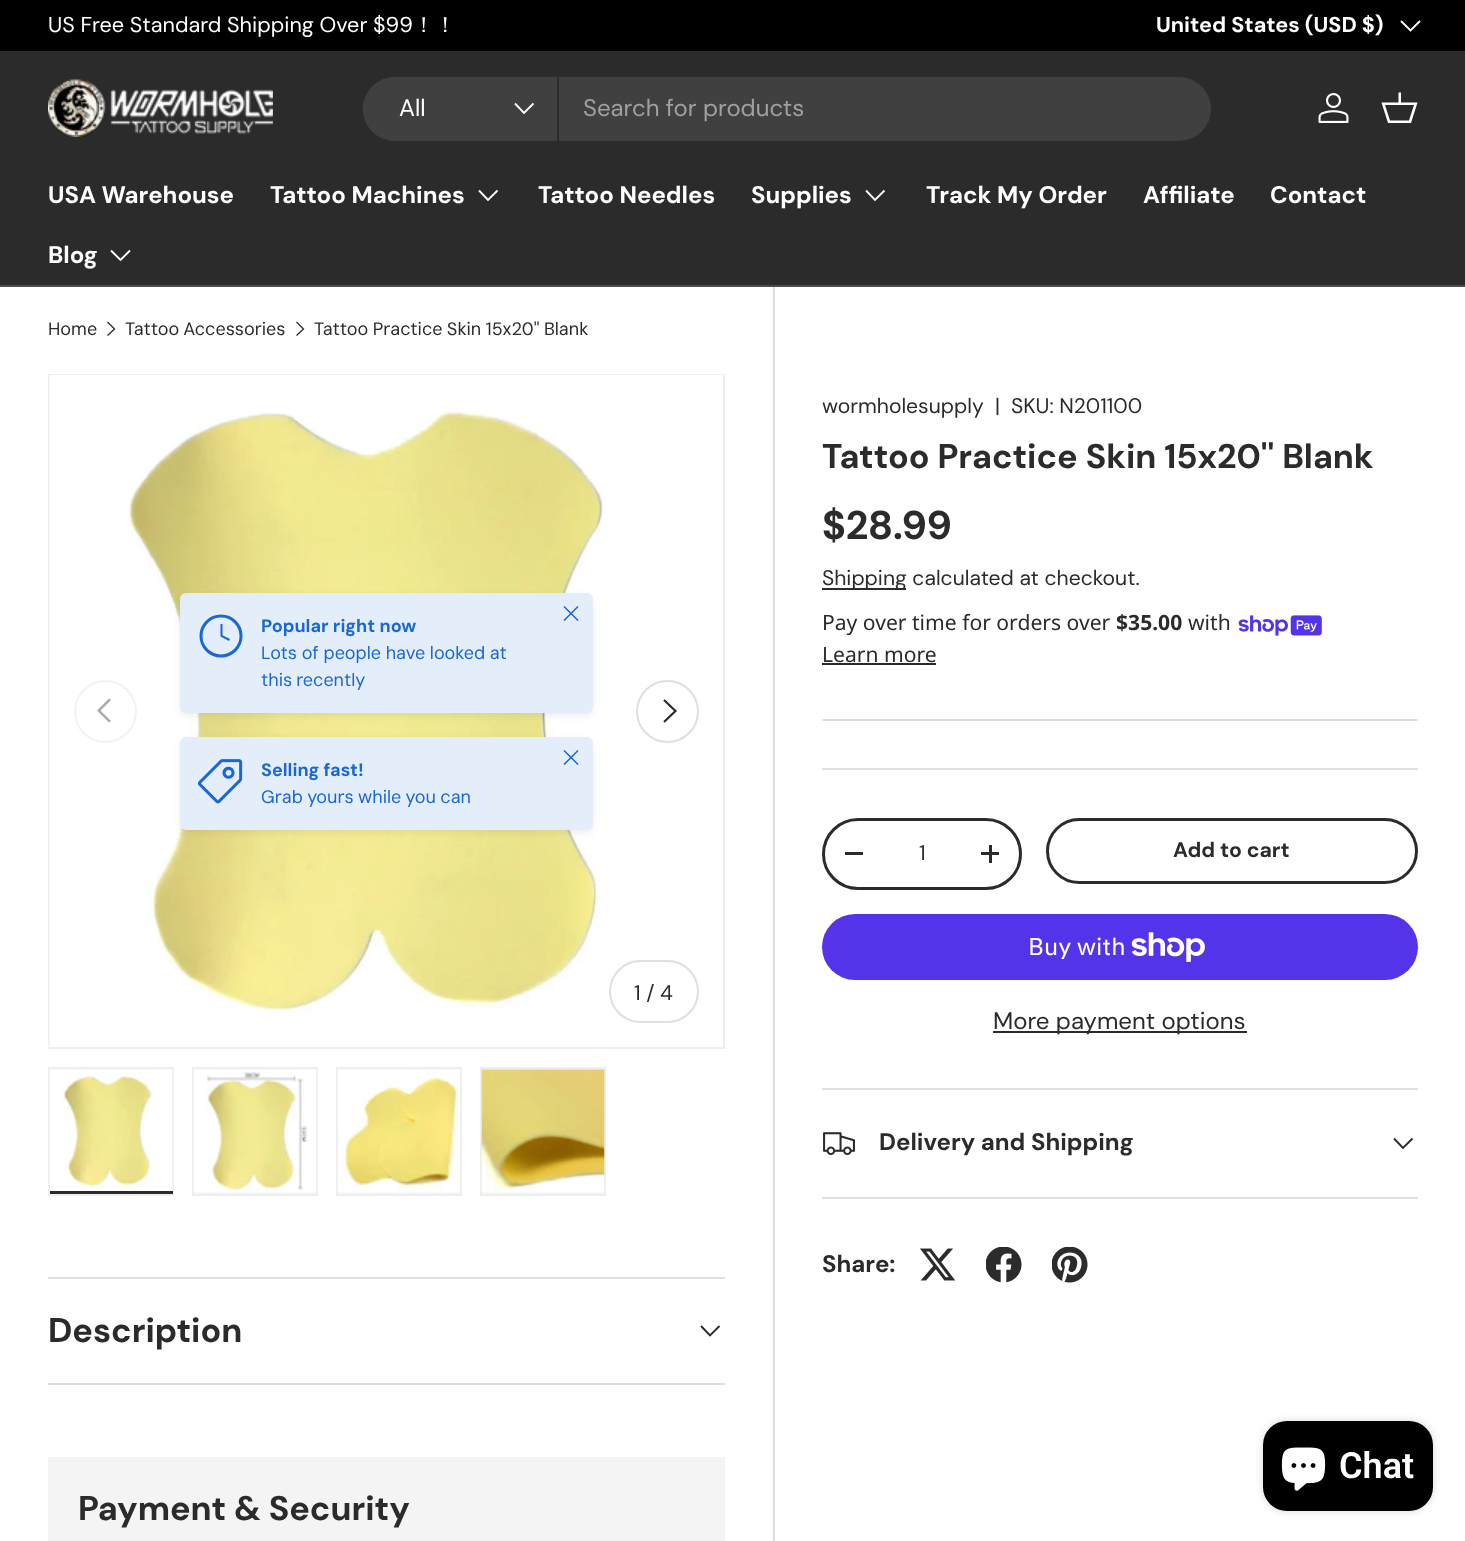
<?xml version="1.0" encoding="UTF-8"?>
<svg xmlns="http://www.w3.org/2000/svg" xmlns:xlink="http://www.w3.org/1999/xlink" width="1465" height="1541">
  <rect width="100%" height="100%" fill="#ffffff" />
  <rect width="1465" height="51" fill="#000000" />
  <path d="M 1420 21 l -9.5 9.5 l -9.5 -9.5" fill="none" stroke="#ffffff" stroke-width="1.9" />
  <rect y="51" width="1465" height="234" fill="#2a2b2a" />
  <rect y="285" width="1465" height="2" fill="#4a4b4a" />
  <image x="48" y="79" width="225" height="58" xlink:href="image1.png" />
  <rect x="363" y="77" width="848" height="64" rx="32" fill="#3f403f" />
  <path d="M 395 77 h 163 v 64 h -163 c -17.5 0 -32 -14.5 -32 -32 c 0 -17.5 14.5 -32 32 -32 z" fill="#3f403f" />
  <rect x="557" y="77" width="2" height="64" fill="#2a2b2a" />
  <path d="M 533.5 103.5 l -9.5 9.5 l -9 -9.5" fill="none" stroke="#ffffff" stroke-width="1.9" />
  <image x="1318" y="93" width="31" height="30" xlink:href="image2.png" />
  <path d="M 1398.5 102.5 v -10 h 2.5 v 10 h 16.5 l -6.5 20.5 h -23 l -6.5 -20.5 z m -13.5 2.5 l 5 15.5 h 19 l 5 -15.5 z" fill="#ffffff" />
  <path d="M 497.5 190.5 l -9.5 9.5 l -9 -9.5" fill="none" stroke="#ffffff" stroke-width="1.9" />
  <path d="M 884.5 190.5 l -9.5 9.5 l -9 -9.5" fill="none" stroke="#ffffff" stroke-width="1.9" />
  <path d="M 130 250.5 l -9.5 9.5 l -9.5 -9.5" fill="none" stroke="#ffffff" stroke-width="1.9" />
  <path d="M 107.5 322 l 7 7 l -7 6.5" fill="none" stroke="#2a2b2a" stroke-width="1.3" />
  <path d="M 296.5 322 l 7 7 l -7 6.5" fill="none" stroke="#2a2b2a" stroke-width="1.3" />
  <rect x="49" y="375" width="675" height="673" fill="none" stroke="#eeeeee" stroke-width="2" />
  <image x="49" y="375" width="674" height="672" xlink:href="image3.png" />
  <rect x="180" y="596" width="413" height="120" rx="6" fill="#212b36" fill-opacity="0.08" filter="blur(3px)" />
  <rect x="180" y="593" width="413" height="120" rx="6" fill="#e4edfa" />
  <circle cx="221" cy="636" r="20" fill="none" stroke="#1a66d2" stroke-width="3" />
  <path d="M 221.5 624 v 12 l 8 4" fill="none" stroke="#1a66d2" stroke-width="2" />
  <path d="M 564 620.5 l 14 -14 m -14 0 l 14 14" fill="none" stroke="#1a66d2" stroke-width="1.5" stroke-linejoin="round" />
  <rect x="180" y="740" width="413" height="93" rx="6" fill="#212b36" fill-opacity="0.08" filter="blur(3px)" />
  <rect x="180" y="737" width="413" height="93" rx="6" fill="#e4edfa" />
  <path d="M 564 764.5 l 14 -14 m -14 0 l 14 14" fill="none" stroke="#1a66d2" stroke-width="1.5" stroke-linejoin="round" />
  <image x="198" y="759" width="45" height="45" xlink:href="image4.png" />
  <circle cx="105.5" cy="711.5" r="30.5" fill="none" stroke="#f2f2f2" stroke-width="2" />
  <path d="M 97 710.5 l 12 -12 l 2 1.5 l -10.5 10.5 l 10.5 10.5 l -2 1.5 z" fill="#aaaaaa" />
  <circle cx="667.5" cy="711.5" r="30.5" fill="none" stroke="#dfdfdf" stroke-width="2" />
  <path d="M 664 700 l 11.5 11 l -11.5 11" fill="none" stroke="#2a2b2a" stroke-width="2.2" />
  <rect x="610" y="961" width="88" height="61" rx="30.5" fill="none" stroke="#dfdfdf" stroke-width="2" />
  <rect x="50" y="1069" width="122" height="1" fill="#f4f4f4" />
  <rect x="49" y="1068" width="124" height="127" fill="none" stroke="#eeeeee" stroke-width="2" />
  <image x="49" y="1069" width="124" height="124" xlink:href="image5.png" />
  <rect x="50" y="1191" width="123" height="3" fill="#2a2b2a" />
  <rect x="193" y="1068" width="124" height="127" fill="#f4f4f4" stroke="#eeeeee" stroke-width="2" />
  <image x="193" y="1069" width="124" height="124" xlink:href="image6.png" />
  <rect x="337" y="1068" width="124" height="127" fill="#f4f4f4" stroke="#eeeeee" stroke-width="2" />
  <image x="337" y="1069" width="124" height="124" xlink:href="image7.png" />
  <rect x="481" y="1068" width="124" height="127" fill="#f4f4f4" stroke="#eeeeee" stroke-width="2" />
  <image x="481" y="1069" width="124" height="124" xlink:href="image8.png" />
  <rect x="773" y="287" width="2" height="1254" fill="#dfdfdf" />
  <rect x="822" y="588" width="84" height="2" fill="#2a2b2a" />
  <image x="1238" y="615" width="84" height="21" xlink:href="image9.png" />
  <rect x="822" y="663" width="114" height="2" fill="#2a2b2a" />
  <rect x="822" y="719" width="596" height="2" fill="#dfdfdf" />
  <rect x="822" y="768" width="596" height="2" fill="#dfdfdf" />
  <rect x="823.5" y="819.5" width="197" height="69" rx="34.5" fill="none" stroke="#2a2b2a" stroke-width="3" />
  <rect x="845" y="852" width="18" height="3" fill="#2a2b2a" />
  <rect x="981" y="852" width="18" height="3" fill="#2a2b2a" />
  <rect x="989" y="845" width="3" height="18" fill="#2a2b2a" />
  <rect x="1047.5" y="819.5" width="369" height="63" rx="31.5" fill="none" stroke="#2a2b2a" stroke-width="3" />
  <rect x="822" y="914" width="596" height="66" rx="33" fill="#5433eb" />
  <image x="1131" y="932" width="74" height="30" xlink:href="image10.png" />
  <rect x="993" y="1031" width="254" height="2" fill="#2a2b2a" />
  <rect x="822" y="1088" width="596" height="2" fill="#dfdfdf" />
  <rect x="822" y="1197" width="596" height="2" fill="#dfdfdf" />
  <image x="823" y="1132" width="32" height="23" xlink:href="image11.png" />
  <path d="M 1412.5 1138.5 l -9.5 9.5 l -9 -9.5" fill="none" stroke="#2a2b2a" stroke-width="1.9" />
  <image x="920" y="1248" width="36" height="33" xlink:href="image12.png" />
  <image x="986" y="1247" width="36" height="36" xlink:href="image13.png" />
  <image x="1052" y="1247" width="36" height="36" xlink:href="image14.png" />
  <rect x="48" y="1277" width="677" height="2" fill="#dfdfdf" />
  <rect x="48" y="1383" width="677" height="2" fill="#dfdfdf" />
  <path d="M 719.5 1326 l -9.5 9.5 l -9 -9.5" fill="none" stroke="#2a2b2a" stroke-width="1.9" />
  <rect x="48" y="1457" width="677" height="84" fill="#f4f4f4" />
  <rect x="1263" y="1421" width="170" height="90" rx="24" fill="#000000" fill-opacity="0.15" filter="blur(4px)" />
  <rect x="1263" y="1421" width="170" height="90" rx="24" fill="#000000" />
  <image x="1281" y="1447" width="45" height="44" xlink:href="image15.png" />
  <text x="48" y="32" style="font-family: 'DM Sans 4'; font-size: 21.6px; fill: #ffffff">US Free Standard Shipping Over $99</text>
  <text x="413" y="32" style="font-family: WenQuanYi Zen Hei; font-size: 21.6px; font-weight: 500; fill: #ffffff">！！</text>
  <text x="1156" y="32" style="font-family: 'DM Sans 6'; font-size: 21.6px; font-weight: bold; fill: #ffffff">United States (USD $)</text>
  <text x="399" y="116" style="font-family: 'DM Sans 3'; font-size: 24px; fill: #ffffff">All</text>
  <text x="583" y="116" style="font-family: 'DM Sans 3'; font-size: 24px; fill: #9fa09f">Search for products</text>
  <text x="48" y="203" style="font-family: 'DM Sans 3'; font-size: 24px; font-weight: bold; fill: #ffffff">USA Warehouse</text>
  <text x="270" y="203" style="font-family: 'DM Sans 3'; font-size: 24px; font-weight: bold; fill: #ffffff">Tattoo Machines</text>
  <text x="538" y="203" style="font-family: 'DM Sans 3'; font-size: 24px; font-weight: bold; fill: #ffffff">Tattoo Needles</text>
  <text x="751" y="203" style="font-family: 'DM Sans 3'; font-size: 24px; font-weight: bold; fill: #ffffff">Supplies</text>
  <text x="926" y="203" style="font-family: 'DM Sans 3'; font-size: 24px; font-weight: bold; fill: #ffffff">Track My Order</text>
  <text x="1143" y="203" style="font-family: 'DM Sans 3'; font-size: 24px; font-weight: bold; fill: #ffffff">Affiliate</text>
  <text x="1270" y="203" style="font-family: 'DM Sans 3'; font-size: 24px; font-weight: bold; fill: #ffffff">Contact</text>
  <text x="48" y="263" style="font-family: 'DM Sans 3'; font-size: 24px; font-weight: bold; fill: #ffffff">Blog</text>
  <text x="48" y="335" style="font-family: DM Sans; font-size: 18px; fill: #2a2b2a">Home</text>
  <text x="125" y="335" word-spacing="-1" style="font-family: DM Sans; font-size: 18px; fill: #2a2b2a">Tattoo Accessories</text>
  <text x="314" y="335" word-spacing="-0.5" style="font-family: DM Sans; font-size: 18px; fill: #2a2b2a">Tattoo Practice Skin 15x20'' Blank</text>
  <text x="261" y="632" style="font-family: 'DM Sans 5'; font-size: 18px; font-weight: bold; fill: #1a66d2">Popular right now</text>
  <text x="261" y="659" word-spacing="-0.25" style="font-family: DM Sans; font-size: 18px; fill: #1a66d2">Lots of people have looked at</text>
  <text x="261" y="686" word-spacing="-1" style="font-family: DM Sans; font-size: 18px; fill: #1a66d2">this recently</text>
  <text x="261" y="776" style="font-family: 'DM Sans 5'; font-size: 18px; font-weight: bold; fill: #1a66d2">Selling fast!</text>
  <text x="261" y="803" word-spacing="-0.5" style="font-family: DM Sans; font-size: 18px; fill: #1a66d2">Grab yours while you can</text>
  <text x="634" y="1000" style="font-family: 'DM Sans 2'; font-size: 21.1px; fill: #2a2b2a">1 / 4</text>
  <text x="822" y="413" style="font-family: 'DM Sans 2'; font-size: 21.1px; fill: #2a2b2a">wormholesupply</text>
  <text x="995" y="413" style="font-family: 'DM Sans 2'; font-size: 21.1px; fill: #2a2b2a">|</text>
  <text x="1011" y="413" style="font-family: 'DM Sans 2'; font-size: 21.1px; fill: #2a2b2a">SKU: N201100</text>
  <text x="822" y="468" style="font-family: DM Sans; font-size: 34.2px; font-weight: bold; fill: #2a2b2a">Tattoo Practice Skin 15x20'' Blank</text>
  <text x="822" y="539" style="font-family: 'DM Sans 2'; font-size: 40px; font-weight: bold; fill: #2a2b2a">$28.99</text>
  <text x="822" y="585" style="font-family: 'DM Sans 2'; font-size: 21.1px; fill: #2a2b2a">Shipping calculated at checkout.</text>
  <text x="822" y="630" style="font-family: Noto Sans; font-size: 21.1px; fill: #2a2b2a">Pay over time for orders over</text>
  <text x="1116" y="630" style="font-family: Noto Sans; font-size: 21.1px; font-weight: bold; fill: #2a2b2a">$35.00</text>
  <text x="1188" y="630" style="font-family: Noto Sans; font-size: 21.1px; fill: #2a2b2a">with</text>
  <text x="822" y="662" style="font-family: Noto Sans; font-size: 21.1px; fill: #2a2b2a">Learn more</text>
  <text x="919" y="860" style="font-family: 'DM Sans 2'; font-size: 21.1px; fill: #2a2b2a">1</text>
  <text x="1173" y="857" style="font-family: 'DM Sans 4'; font-size: 21.1px; font-weight: bold; fill: #2a2b2a">Add to cart</text>
  <text x="1028" y="955" style="font-family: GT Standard; font-size: 24px; fill: #ffffff">Buy with</text>
  <text x="993" y="1029" style="font-family: 'DM Sans 3'; font-size: 24px; fill: #2a2b2a">More payment options</text>
  <text x="879" y="1150" style="font-family: 'DM Sans 3'; font-size: 24px; font-weight: bold; fill: #2a2b2a">Delivery and Shipping</text>
  <text x="822" y="1272" style="font-family: 'DM Sans 3'; font-size: 24px; font-weight: bold; fill: #2a2b2a">Share:</text>
  <text x="48" y="1342" style="font-family: DM Sans; font-size: 34.2px; font-weight: bold; fill: #2a2b2a">Description</text>
  <text x="78" y="1520" style="font-family: DM Sans; font-size: 34.2px; font-weight: bold; fill: #2a2b2a">Payment &amp; Security</text>
  <text x="1339" y="1478" style="font-family: Roboto; font-size: 36px; font-weight: 600; fill: #ffffff">Chat</text>
</svg>
